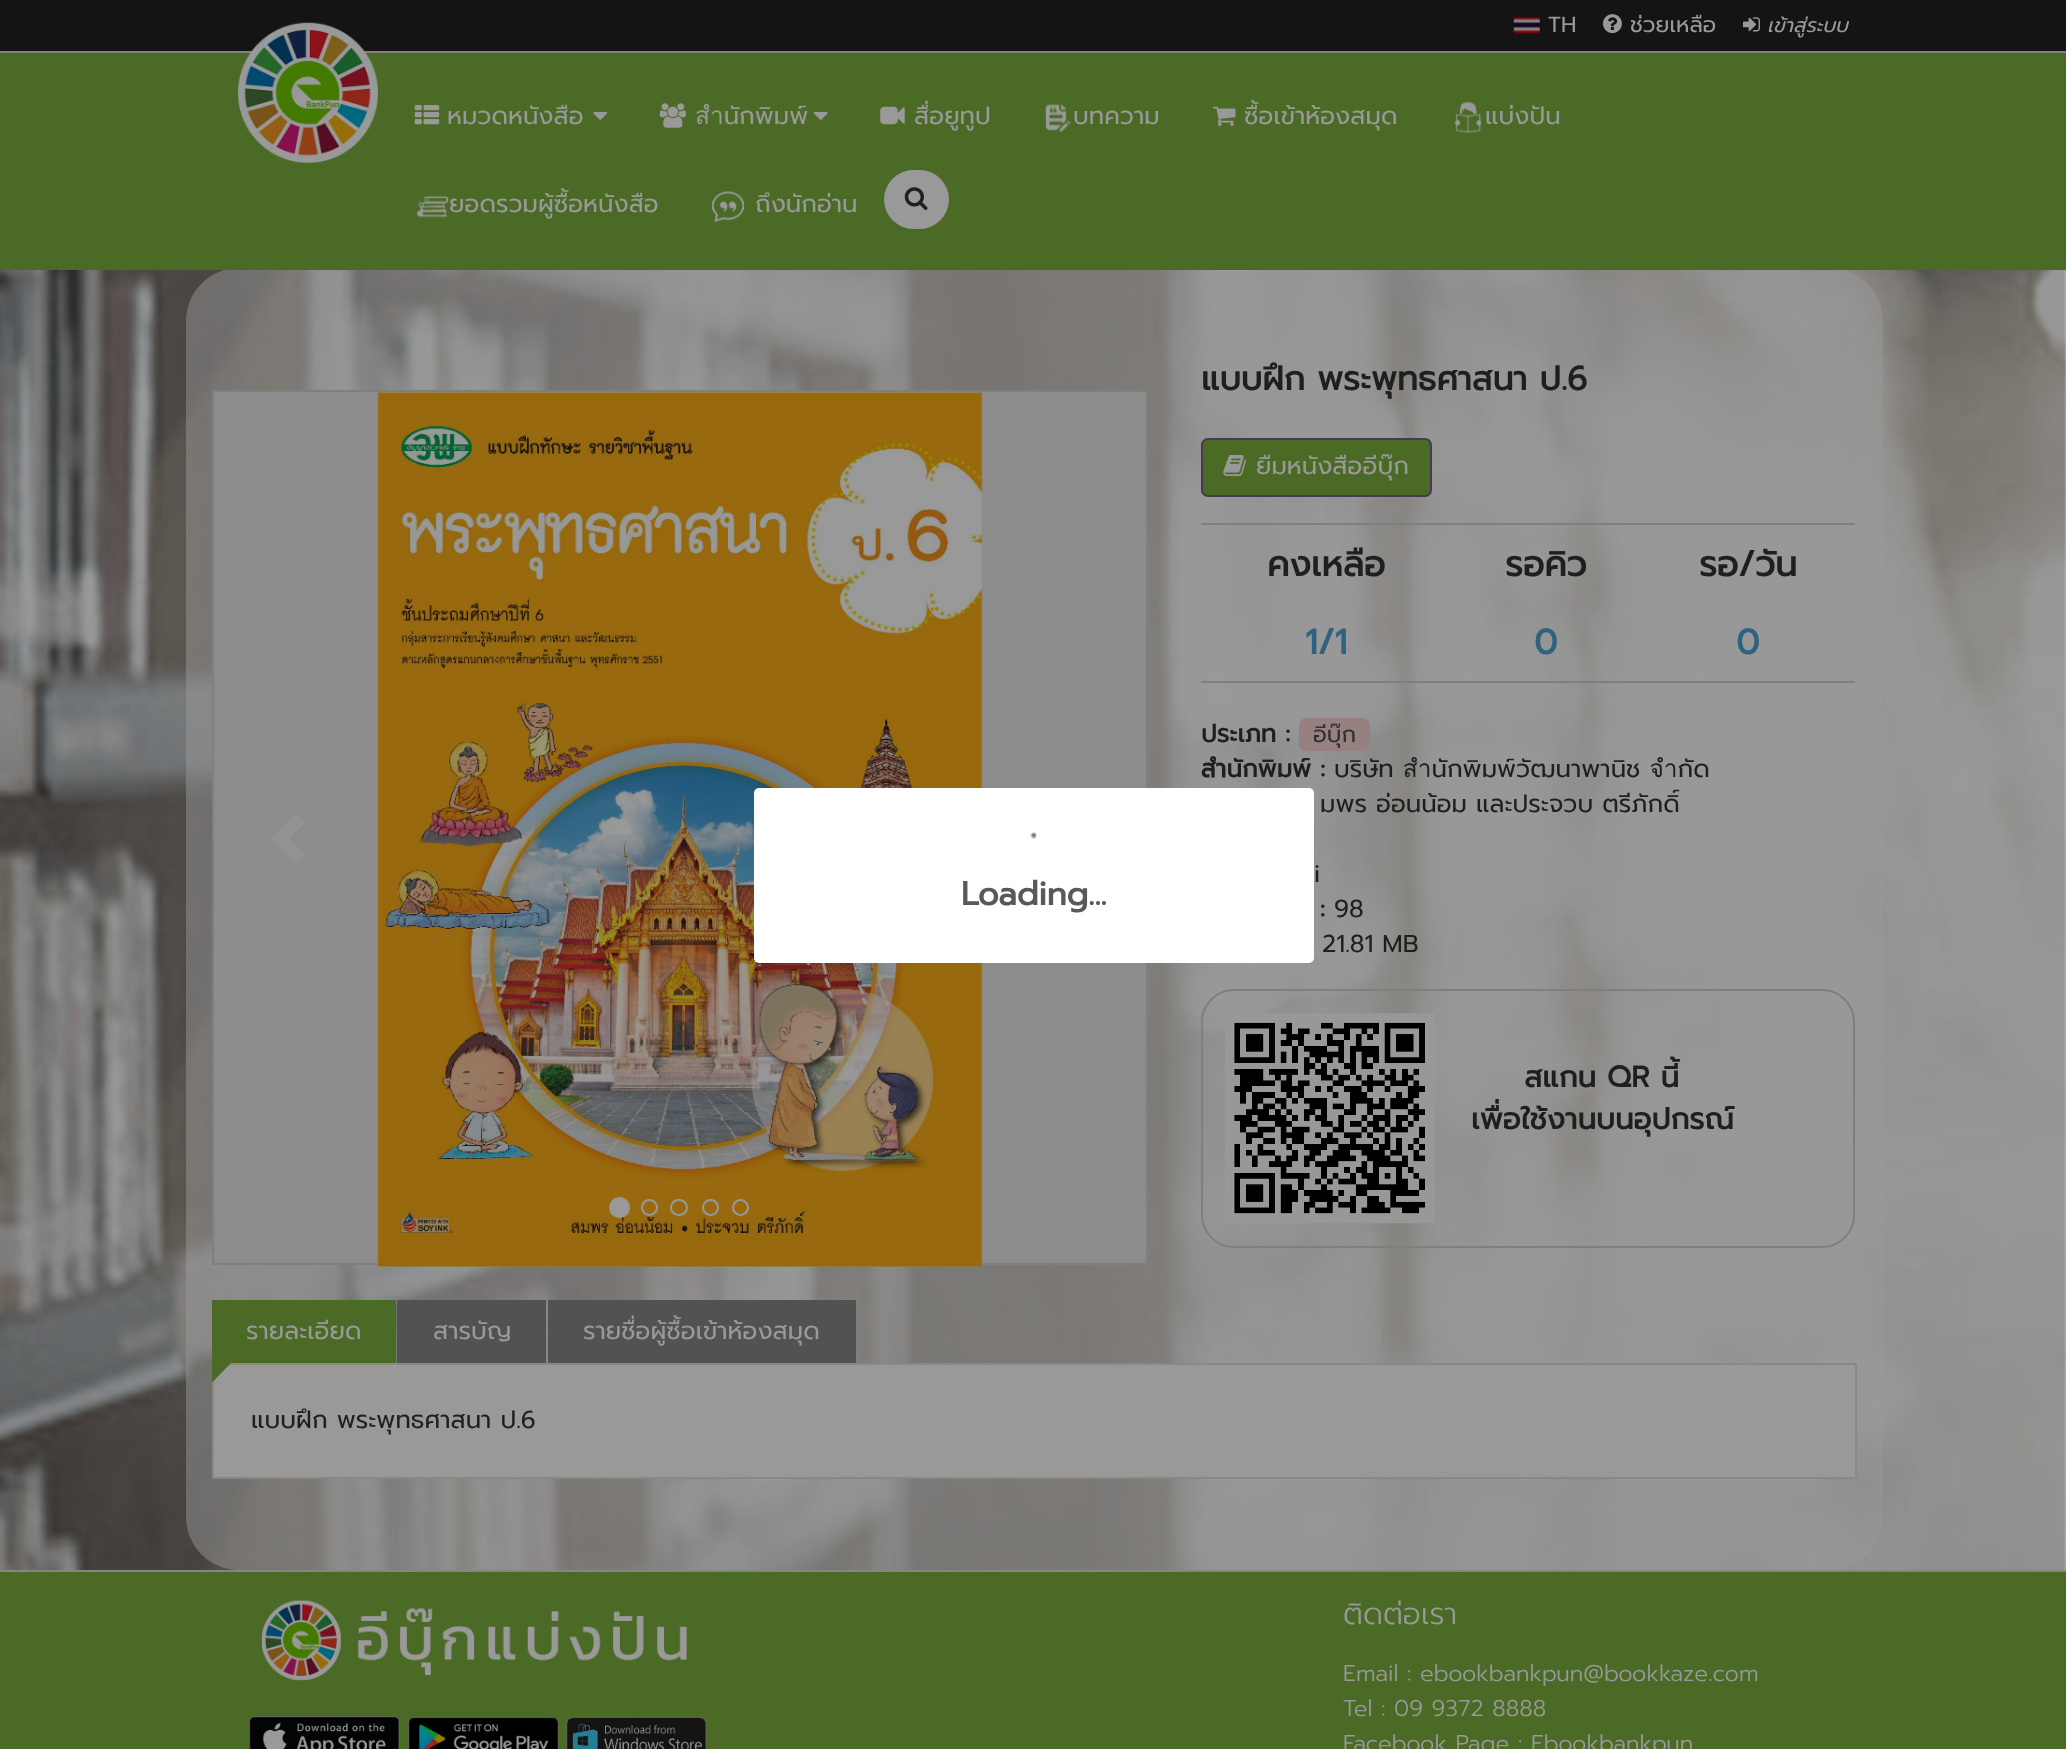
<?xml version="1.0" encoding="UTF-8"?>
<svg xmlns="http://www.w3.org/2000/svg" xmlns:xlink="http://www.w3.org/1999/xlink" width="2066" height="1749">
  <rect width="100%" height="100%" fill="#ffffff" />
  <image x="0" y="270" width="2066" height="1300" xlink:href="image1.png" />
  <rect width="2066" height="51" fill="#141414" />
  <rect y="51" width="2066" height="2" fill="#808080" />
  <image x="1513" y="16" width="27" height="18" xlink:href="image2.png" />
  <image x="1603" y="14" width="19" height="20" xlink:href="image3.png" />
  <image x="1743" y="17" width="17" height="15" xlink:href="image4.png" />
  <rect x="186" y="268" width="1697" height="1302" rx="53" fill="#999999" fill-opacity="0.49" />
  <rect y="53" width="2066" height="217" fill="#4a6a25" />
  <image x="237" y="22" width="141" height="141" xlink:href="image5.png" />
  <image x="414" y="105" width="26" height="20" xlink:href="image6.png" />
  <image x="593" y="112" width="15" height="8" xlink:href="image7.png" />
  <image x="659" y="103" width="27" height="25" xlink:href="image8.png" />
  <image x="813" y="112" width="15" height="8" xlink:href="image9.png" />
  <image x="880" y="106" width="25" height="19" xlink:href="image10.png" />
  <image x="1045" y="103" width="26" height="30" xlink:href="image11.png" />
  <image x="1212" y="106" width="24" height="20" xlink:href="image12.png" />
  <image x="1454" y="101" width="28" height="33" xlink:href="image13.png" />
  <image x="416" y="196" width="33" height="22" xlink:href="image14.png" />
  <image x="712" y="191" width="32" height="32" xlink:href="image15.png" />
  <rect x="884" y="170" width="65" height="59" rx="29.5" fill="#999999" />
  <image x="904" y="187" width="24" height="23" xlink:href="image16.png" />
  <rect x="213" y="391" width="934" height="873" fill="#8c8c8c" stroke="#7f7f7f" stroke-width="2" />
  <path d="M 305 823 l -16 16 l 16 15 l -9 9 l -24 -24 l 24 -24 z" fill="#939393" />
  <image x="377" y="392" width="606" height="875" xlink:href="image17.png" />
  <circle cx="619.5" cy="1207.5" r="9.5" fill="#999999" stroke="#999999" stroke-width="2" />
  <circle cx="649.5" cy="1207.5" r="7.5" fill="none" stroke="#999999" stroke-width="2" />
  <rect x="671" y="1200" width="16" height="15" rx="7.5" fill="none" stroke="#999999" stroke-width="2" />
  <circle cx="710.5" cy="1207.5" r="7.5" fill="none" stroke="#999999" stroke-width="2" />
  <circle cx="740.5" cy="1207.5" r="7.5" fill="none" stroke="#999999" stroke-width="2" />
  <rect x="1202" y="439" width="229" height="57" rx="6" fill="#4a6a25" stroke="#493753" stroke-width="2" />
  <image x="1223" y="455" width="23" height="21" xlink:href="image18.png" />
  <rect x="1201" y="523" width="654" height="2" fill="#7f7f7f" />
  <rect x="1201" y="681" width="654" height="2" fill="#7f7f7f" />
  <rect x="1299" y="718" width="71" height="33" rx="7" fill="#978080" />
  <rect x="1202" y="990" width="652" height="257" rx="32" fill="none" stroke="#7f7f7f" stroke-width="2" />
  <image x="1225" y="1013" width="210" height="211" xlink:href="image19.png" />
  <rect x="212" y="1300" width="184" height="63" fill="#4a6a25" />
  <rect x="213" y="1364" width="1643" height="114" fill="#999999" stroke="#898885" stroke-width="2" />
  <path d="M 212 1363 h 19 l -19 19.5 z" fill="#4a6a25" />
  <rect x="397" y="1300" width="149" height="63" fill="#525252" />
  <rect x="548" y="1300" width="308" height="63" fill="#525252" />
  <rect x="754" y="788" width="560" height="175" rx="5" fill="#ffffff" />
  <image x="1030" y="832" width="7" height="7" xlink:href="image20.png" />
  <rect y="1572" width="2066" height="177" fill="#4a6a25" />
  <rect y="1570" width="2066" height="2" fill="#858585" />
  <image x="261" y="1599" width="426" height="82" xlink:href="image21.png" />
  <image x="248" y="1716" width="459" height="33" xlink:href="image22.png" />
  <text x="1548" y="32" style="font-family: Prompt; font-size: 22px; fill: #999999">TH</text>
  <text x="1630" y="32" style="font-family: Prompt; font-size: 22px; fill: #999999">ช่วยเหลือ</text>
  <text x="1767" y="32" style="font-family: Prompt; font-size: 20px; font-style: italic; fill: #999999">เข้าสู่ระบบ</text>
  <text x="447" y="124" style="font-family: Prompt; font-size: 24.5px; fill: #999999">หมวดหนังสือ</text>
  <text x="695" y="124" style="font-family: Prompt; font-size: 24.5px; fill: #999999">สำนักพิมพ์</text>
  <text x="914" y="124" style="font-family: Prompt; font-size: 24.5px; fill: #999999">สื่อยูทูป</text>
  <text x="1073" y="124" style="font-family: Prompt; font-size: 24.5px; fill: #999999">บทความ</text>
  <text x="1244" y="124" style="font-family: Prompt; font-size: 24.5px; fill: #999999">ซื้อเข้าห้องสมุด</text>
  <text x="1485" y="124" style="font-family: Prompt; font-size: 24.5px; fill: #999999">แบ่งปัน</text>
  <text x="449" y="212" style="font-family: Prompt; font-size: 24.5px; fill: #999999">ยอดรวมผู้ซื้อหนังสือ</text>
  <text x="755" y="212" style="font-family: Prompt; font-size: 24.5px; fill: #999999">ถึงนักอ่าน</text>
  <text x="1201" y="390" style="font-family: Prompt; font-size: 33.25px; font-weight: bold; fill: #1f1f1f">แบบฝึก พระพุทธศาสนา ป.6</text>
  <text x="1256" y="474" style="font-family: Prompt; font-size: 24.5px; fill: #999999">ยืมหนังสืออีบุ๊ก</text>
  <text x="1267" y="576" style="font-family: Prompt; font-size: 35px; font-weight: bold; fill: #1f1f1f">คงเหลือ</text>
  <text x="1505" y="576" style="font-family: Prompt; font-size: 35px; font-weight: bold; fill: #1f1f1f">รอคิว</text>
  <text x="1699" y="576" style="font-family: Prompt; font-size: 35px; font-weight: bold; fill: #1f1f1f">รอ/วัน</text>
  <text x="1305" y="654" style="font-family: Prompt; font-size: 35px; font-weight: bold; fill: #2e6380">1/1</text>
  <text x="1534" y="654" style="font-family: Prompt; font-size: 35px; font-weight: bold; fill: #2e6380">0</text>
  <text x="1736" y="654" style="font-family: Prompt; font-size: 35px; font-weight: bold; fill: #2e6380">0</text>
  <text x="1201" y="742" style="font-family: Prompt; font-size: 24.5px; font-weight: bold; fill: #1f1f1f">ประเภท :</text>
  <text x="1313" y="742" style="font-family: Prompt; font-size: 22.75px; fill: #313030">อีบุ๊ก</text>
  <text x="1201" y="777" style="font-family: Prompt; font-size: 24.5px; font-weight: bold; fill: #1f1f1f">สำนักพิมพ์ :</text>
  <text x="1334" y="777" style="font-family: Prompt; font-size: 24.5px; fill: #1f1f1f">บริษัท สำนักพิมพ์วัฒนาพานิช จำกัด</text>
  <text x="1320" y="812" style="font-family: Prompt; font-size: 24.5px; fill: #1f1f1f">มพร อ่อนน้อม และประจวบ ตรีภักดิ์</text>
  <text x="1314" y="882" style="font-family: Prompt; font-size: 24.5px; fill: #1f1f1f">i</text>
  <text x="1320" y="917" style="font-family: Prompt; font-size: 24.5px; font-weight: bold; fill: #1f1f1f">:</text>
  <text x="1334" y="917" style="font-family: Prompt; font-size: 24.5px; fill: #1f1f1f">98</text>
  <text x="1322" y="952" style="font-family: Prompt; font-size: 24.5px; fill: #1f1f1f">21.81 MB</text>
  <text x="1524" y="1087" style="font-family: Prompt; font-size: 29.5px; font-weight: bold; fill: #1f1f1f">สแกน QR นี้</text>
  <text x="1471" y="1129" style="font-family: Prompt; font-size: 29.5px; font-weight: bold; fill: #1f1f1f">เพื่อใช้งานบนอุปกรณ์</text>
  <text x="246" y="1339" style="font-family: Prompt; font-size: 24.5px; fill: #999999">รายละเอียด</text>
  <text x="433" y="1339" style="font-family: Prompt; font-size: 24.5px; fill: #999999">สารบัญ</text>
  <text x="583" y="1339" style="font-family: Prompt; font-size: 24.5px; fill: #999999">รายชื่อผู้ซื้อเข้าห้องสมุด</text>
  <text x="251" y="1428" style="font-family: Prompt; font-size: 24.5px; fill: #1f1f1f">แบบฝึก พระพุทธศาสนา ป.6</text>
  <text x="961" y="905" style="font-family: Prompt; font-size: 33px; font-weight: bold; fill: #595959">Loading...</text>
  <text x="1343" y="1624" style="font-family: Prompt; font-size: 30px; font-weight: 300; fill: #999999">ติดต่อเรา</text>
  <text x="1343" y="1681" style="font-family: Prompt; font-size: 22.75px; font-weight: 300; fill: #999999">Email : ebookbankpun@bookkaze.com</text>
  <text x="1343" y="1716" style="font-family: Prompt; font-size: 22.75px; font-weight: 300; fill: #999999">Tel : 09 9372 8888</text>
  <text x="1343" y="1751" style="font-family: Prompt; font-size: 22.75px; font-weight: 300; fill: #999999">Facebook Page : Ebookbankpun</text>
</svg>
